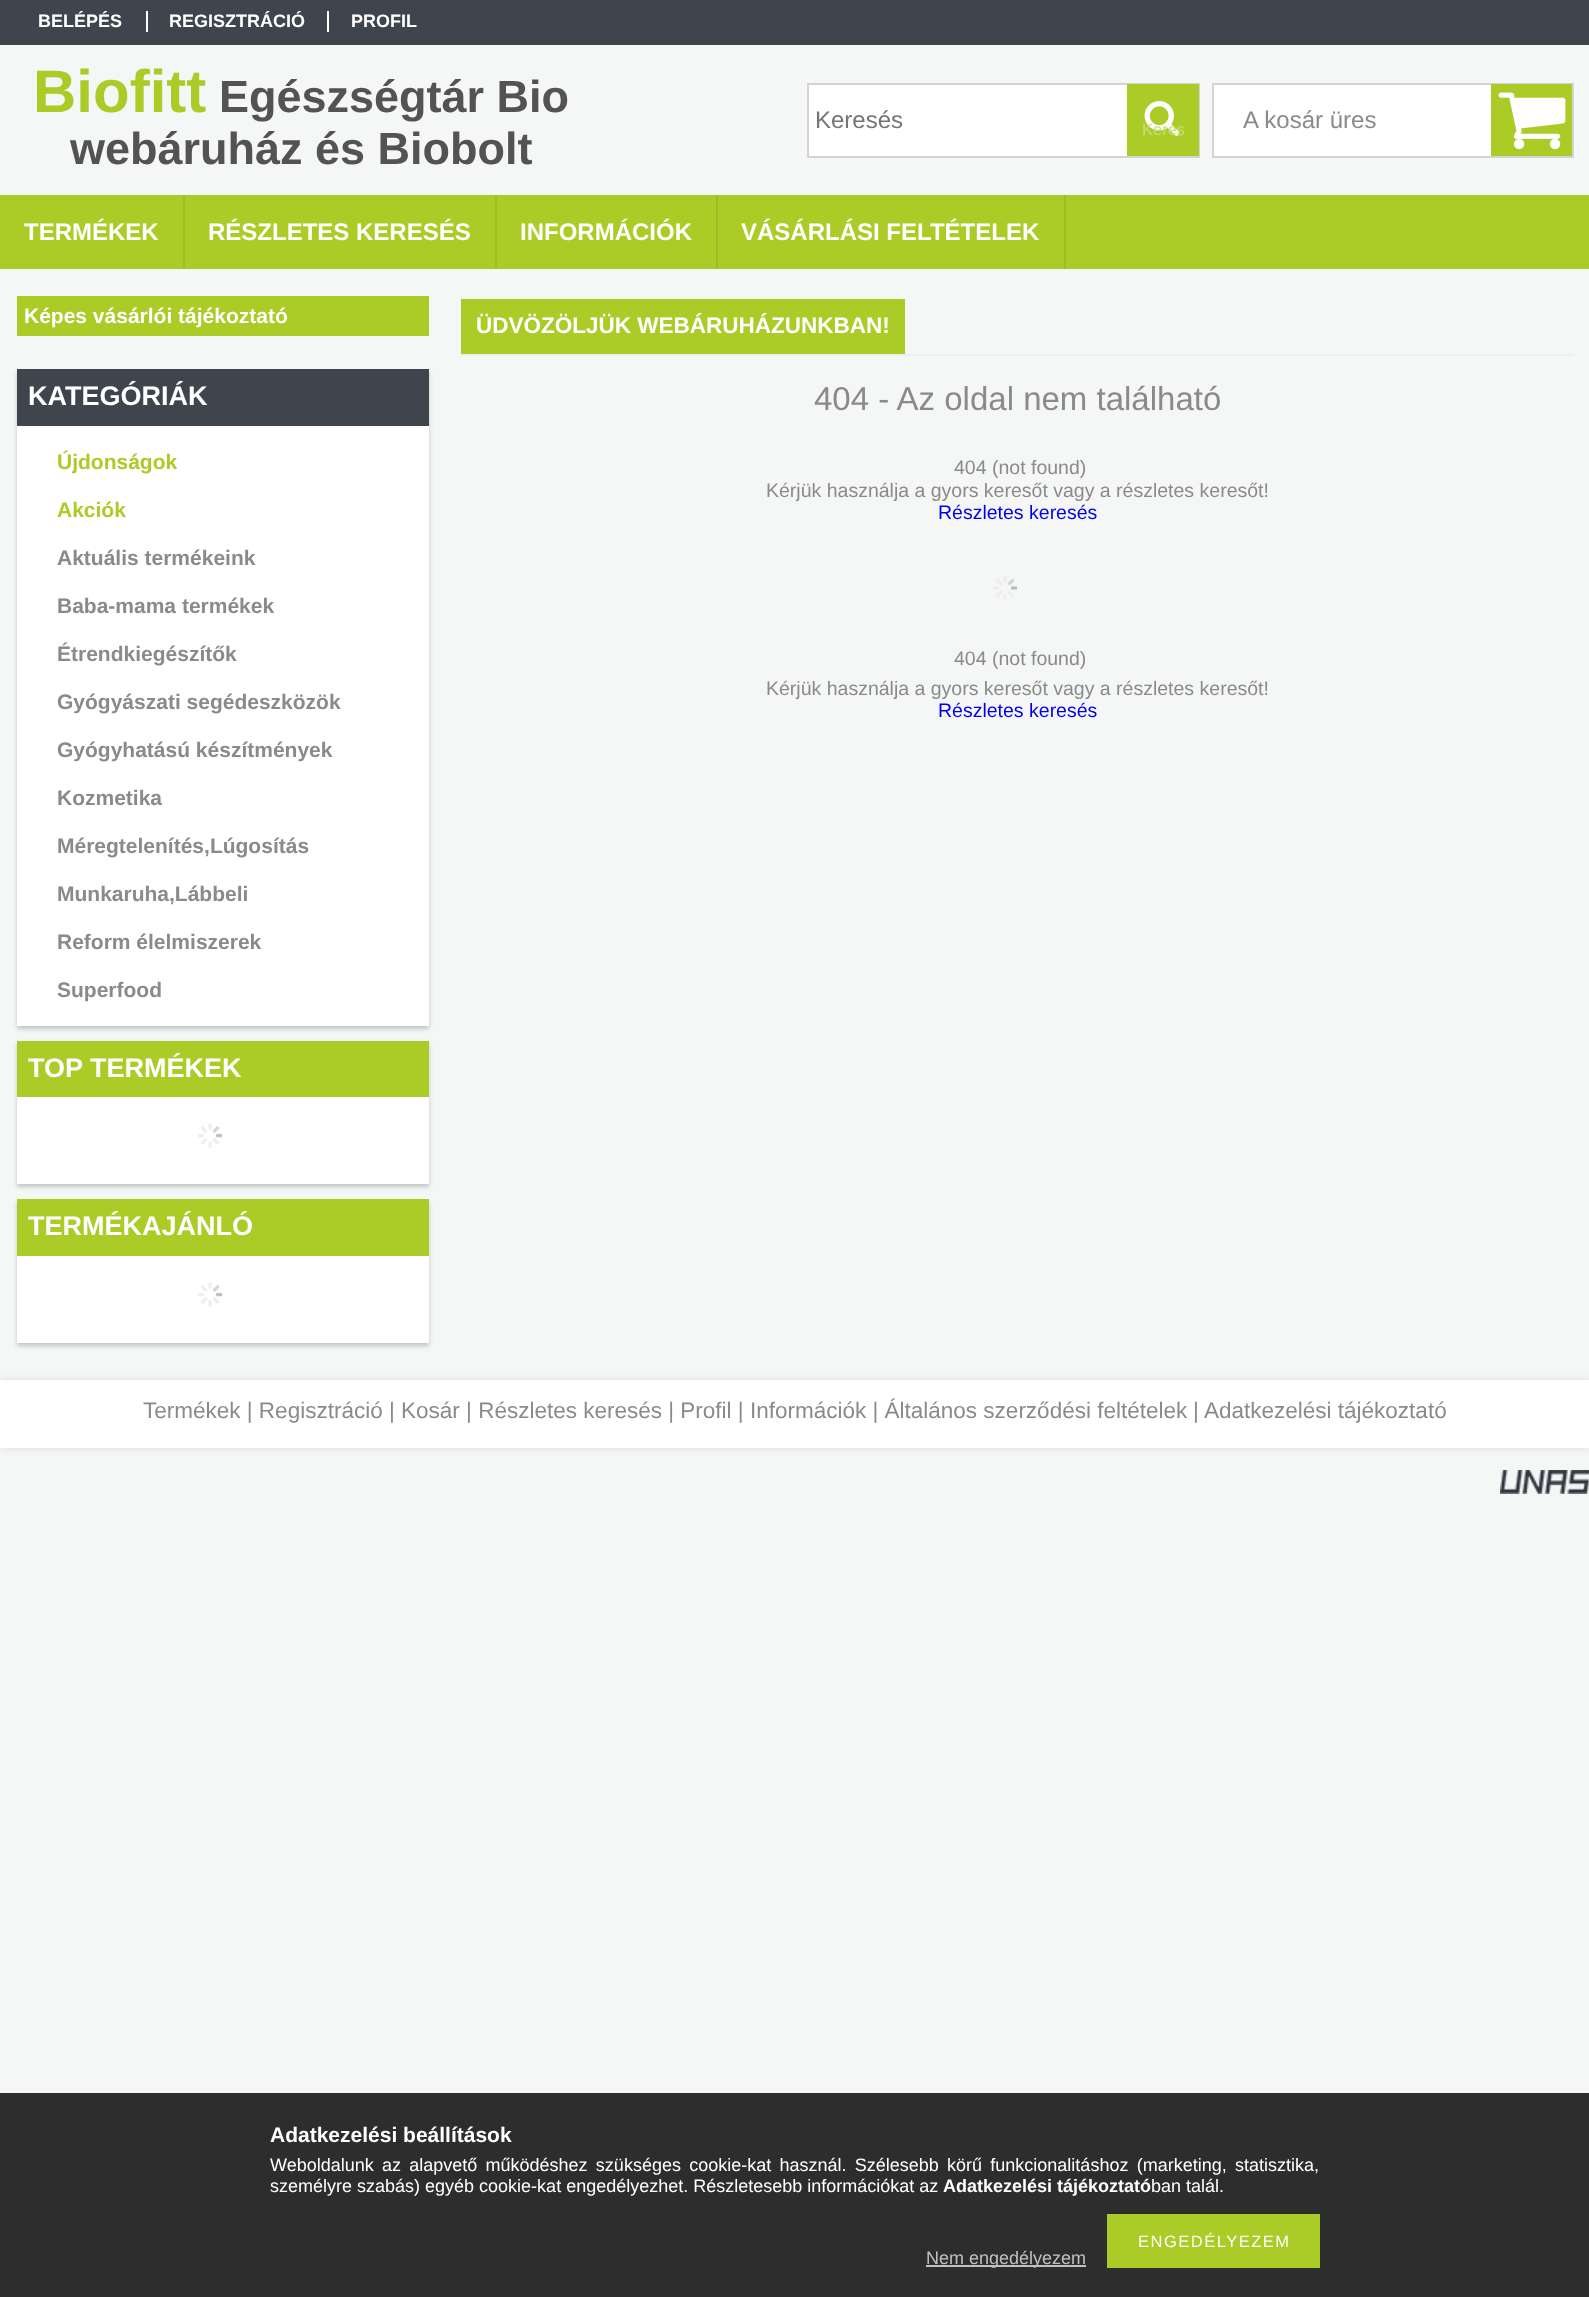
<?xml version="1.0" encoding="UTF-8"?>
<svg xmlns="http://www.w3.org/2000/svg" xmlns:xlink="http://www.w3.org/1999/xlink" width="1589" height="2297">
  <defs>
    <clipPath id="clip1"><rect x="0" y="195" width="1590" height="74" /></clipPath>
    <clipPath id="clip2"><path d="M 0 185 h 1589 v 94 h -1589 z m 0 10 h 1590 v 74 h -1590 z" clip-rule="evenodd" /></clipPath>
  </defs>
  <rect width="100%" height="100%" fill="#f5f6f6" />
  <rect width="1589" height="45" fill="#3e454c" />
  <rect x="146" y="11" width="2" height="21" fill="#ffffff" />
  <rect x="327" y="11" width="2" height="21" fill="#ffffff" />
  <rect x="809" y="85" width="318" height="71" fill="#ffffff" />
  <rect x="808" y="84" width="391" height="73" fill="none" stroke="#d4d4d4" stroke-width="2" />
  <rect x="1127" y="84" width="72" height="72" fill="#abcc27" />
  <image x="1144" y="101" width="36" height="35" xlink:href="image1.png" />
  <rect x="1214" y="85" width="277" height="71" fill="#ffffff" />
  <rect x="1213" y="84" width="360" height="73" fill="none" stroke="#d4d4d4" stroke-width="2" />
  <rect x="1491" y="84" width="81" height="72" fill="#abcc27" />
  <image x="1498" y="92" width="68" height="58" xlink:href="image2.png" />
  <rect y="195" width="1589" height="74" fill="#abcc27" />
  <g clip-path="url(#clip1)">
    <g clip-path="url(#clip2)">
      <rect x="6" y="195" width="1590" height="74" fill="#000000" fill-opacity="0.2" filter="blur(3px)" />
    </g>
  </g>
  <rect x="183" y="195" width="2" height="74" fill="#000000" fill-opacity="0.07" />
  <rect x="495" y="195" width="2" height="74" fill="#000000" fill-opacity="0.07" />
  <rect x="716" y="195" width="2" height="74" fill="#000000" fill-opacity="0.07" />
  <rect x="1064" y="195" width="2" height="74" fill="#000000" fill-opacity="0.07" />
  <rect x="17" y="296" width="412" height="40" fill="#abcc27" />
  <rect x="17" y="372" width="412" height="657" fill="#000000" fill-opacity="0.2" filter="blur(2px)" />
  <rect x="17" y="369" width="412" height="57" fill="#3e454c" />
  <rect x="17" y="426" width="412" height="600" fill="#ffffff" />
  <rect x="17" y="1044" width="412" height="143" fill="#000000" fill-opacity="0.2" filter="blur(2px)" />
  <rect x="17" y="1041" width="412" height="56" fill="#abcc27" />
  <rect x="17" y="1097" width="412" height="87" fill="#ffffff" />
  <image x="198" y="1123" width="24" height="25" xlink:href="image3.png" />
  <rect x="17" y="1202" width="412" height="144" fill="#000000" fill-opacity="0.2" filter="blur(2px)" />
  <rect x="17" y="1199" width="412" height="57" fill="#abcc27" />
  <rect x="17" y="1256" width="412" height="87" fill="#ffffff" />
  <image x="198" y="1282" width="24" height="25" xlink:href="image3.png" />
  <rect x="461" y="354" width="1113" height="2" fill="#efefef" />
  <rect x="461" y="299" width="444" height="55" fill="#abcc27" />
  <image x="993" y="576" width="24" height="24" xlink:href="image4.png" />
  <rect y="1380" width="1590" height="68" fill="#000000" fill-opacity="0.1" filter="blur(4px)" />
  <rect y="1380" width="1589" height="68" fill="#ffffff" />
  <image x="1500" y="1470" width="89" height="24" xlink:href="image5.png" />
  <rect y="2093" width="1589" height="204" fill="#2d2d2d" />
  <rect x="1107" y="2214" width="213" height="54" fill="#abcc27" />
  <rect x="926" y="2265" width="160" height="2" fill="#c0c0c0" />
  <text x="38" y="27" style="font-family: Liberation Sans; font-size: 18px; font-weight: bold; fill: #ffffff">BELÉPÉS</text>
  <text x="169" y="27" style="font-family: Liberation Sans; font-size: 18px; font-weight: bold; fill: #ffffff">REGISZTRÁCIÓ</text>
  <text x="351" y="27" style="font-family: Liberation Sans; font-size: 18px; font-weight: bold; fill: #ffffff">PROFIL</text>
  <text x="33" y="112" style="font-family: Liberation Sans; font-size: 60px; font-weight: bold; fill: #abcc27">Biofitt</text>
  <text x="219" y="112" style="font-family: Liberation Sans; font-size: 45px; font-weight: bold; fill: #535353">Egészségtár Bio</text>
  <text x="70" y="164" style="font-family: Liberation Sans; font-size: 45px; font-weight: bold; fill: #535353">webáruház és Biobolt</text>
  <text x="815" y="128" style="font-family: Liberation Sans; font-size: 24px; fill: #757575">Keresés</text>
  <text x="1142" y="135" style="font-family: Liberation Sans; font-size: 16.5px; fill: #c9de75">Keres</text>
  <text x="1243" y="128" style="font-family: Liberation Sans; font-size: 24px; fill: #8b8a8a">A kosár üres</text>
  <text x="24" y="240" style="font-family: Liberation Sans; font-size: 24px; font-weight: bold; fill: #ffffff">TERMÉKEK</text>
  <text x="208" y="240" style="font-family: Liberation Sans; font-size: 24px; font-weight: bold; fill: #ffffff">RÉSZLETES KERESÉS</text>
  <text x="520" y="240" style="font-family: Liberation Sans; font-size: 24px; font-weight: bold; fill: #ffffff">INFORMÁCIÓK</text>
  <text x="741" y="240" style="font-family: Liberation Sans; font-size: 24px; font-weight: bold; fill: #ffffff">VÁSÁRLÁSI FELTÉTELEK</text>
  <text x="24" y="323" style="font-family: Liberation Sans; font-size: 21px; font-weight: bold; fill: #ffffff">Képes vásárlói tájékoztató</text>
  <text x="28" y="405" style="font-family: Liberation Sans; font-size: 27px; font-weight: bold; fill: #ffffff">KATEGÓRIÁK</text>
  <text x="57" y="469" style="font-family: Liberation Sans; font-size: 21px; font-weight: bold; fill: #abcc27">Újdonságok</text>
  <text x="57" y="517" style="font-family: Liberation Sans; font-size: 21px; font-weight: bold; fill: #abcc27">Akciók</text>
  <text x="57" y="565" style="font-family: Liberation Sans; font-size: 21px; font-weight: bold; fill: #8b8a8a">Aktuális termékeink</text>
  <text x="57" y="613" style="font-family: Liberation Sans; font-size: 21px; font-weight: bold; fill: #8b8a8a">Baba-mama termékek</text>
  <text x="57" y="661" style="font-family: Liberation Sans; font-size: 21px; font-weight: bold; fill: #8b8a8a">Étrendkiegészítők</text>
  <text x="57" y="709" style="font-family: Liberation Sans; font-size: 21px; font-weight: bold; fill: #8b8a8a">Gyógyászati segédeszközök</text>
  <text x="57" y="757" style="font-family: Liberation Sans; font-size: 21px; font-weight: bold; fill: #8b8a8a">Gyógyhatású készítmények</text>
  <text x="57" y="805" style="font-family: Liberation Sans; font-size: 21px; font-weight: bold; fill: #8b8a8a">Kozmetika</text>
  <text x="57" y="853" style="font-family: Liberation Sans; font-size: 21px; font-weight: bold; fill: #8b8a8a">Méregtelenítés,Lúgosítás</text>
  <text x="57" y="901" style="font-family: Liberation Sans; font-size: 21px; font-weight: bold; fill: #8b8a8a">Munkaruha,Lábbeli</text>
  <text x="57" y="949" style="font-family: Liberation Sans; font-size: 21px; font-weight: bold; fill: #8b8a8a">Reform élelmiszerek</text>
  <text x="57" y="997" style="font-family: Liberation Sans; font-size: 21px; font-weight: bold; fill: #8b8a8a">Superfood</text>
  <text x="28" y="1077" style="font-family: Liberation Sans; font-size: 27px; font-weight: bold; fill: #ffffff">TOP TERMÉKEK</text>
  <text x="28" y="1235" style="font-family: Liberation Sans; font-size: 27px; font-weight: bold; fill: #ffffff">TERMÉKAJÁNLÓ</text>
  <text x="476" y="333" style="font-family: Liberation Sans; font-size: 22.5px; font-weight: bold; fill: #ffffff">ÜDVÖZÖLJÜK WEBÁRUHÁZUNKBAN!</text>
  <text x="814" y="410" style="font-family: Liberation Sans; font-size: 33px; fill: #8b8a8a">404 - Az oldal nem található</text>
  <text x="954" y="474" style="font-family: Liberation Sans; font-size: 19.5px; fill: #8b8a8a">404 (not found)</text>
  <text x="766" y="497" style="font-family: Liberation Sans; font-size: 19.5px; fill: #8b8a8a">Kérjük használja a gyors keresőt vagy a részletes keresőt!</text>
  <text x="938" y="519" style="font-family: Liberation Sans; font-size: 19.5px; fill: #0000ee">Részletes keresés</text>
  <text x="954" y="665" style="font-family: Liberation Sans; font-size: 19.5px; fill: #8b8a8a">404 (not found)</text>
  <text x="766" y="695" style="font-family: Liberation Sans; font-size: 19.5px; fill: #8b8a8a">Kérjük használja a gyors keresőt vagy a részletes keresőt!</text>
  <text x="938" y="717" style="font-family: Liberation Sans; font-size: 19.5px; fill: #0000ee">Részletes keresés</text>
  <text x="143" y="1418" style="font-family: Liberation Sans; font-size: 22.5px; fill: #8b8a8a">Termékek | Regisztráció | Kosár | Részletes keresés | Profil | Információk | Általános szerződési feltételek</text>
  <text x="1193" y="1418" style="font-family: Liberation Sans; font-size: 22.5px; fill: #8b8a8a">|</text>
  <text x="1204" y="1418" style="font-family: Liberation Sans; font-size: 22.5px; fill: #8b8a8a">Adatkezelési tájékoztató</text>
  <text x="270" y="2142" style="font-family: Liberation Sans; font-size: 21px; font-weight: bold; fill: #ffffff">Adatkezelési beállítások</text>
  <text x="270" y="2171" word-spacing="3.25" style="font-family: Liberation Sans; font-size: 18px; fill: #ffffff">Weboldalunk az alapvető működéshez szükséges cookie-kat használ. Szélesebb körű funkcionalitáshoz (marketing, statisztika,</text>
  <text x="270" y="2192" style="font-family: Liberation Sans; font-size: 18px; fill: #ffffff">személyre szabás) egyéb cookie-kat engedélyezhet. Részletesebb információkat az</text>
  <text x="943" y="2192" style="font-family: Liberation Sans; font-size: 18px; font-weight: bold; fill: #ffffff">Adatkezelési tájékoztató</text>
  <text x="1151" y="2192" style="font-family: Liberation Sans; font-size: 18px; fill: #ffffff">ban talál.</text>
  <text x="1138" y="2247" style="font-family: Liberation Sans; font-size: 16.5px; letter-spacing: 1.5px; fill: #ffffff">ENGEDÉLYEZEM</text>
  <text x="926" y="2264" style="font-family: Liberation Sans; font-size: 18px; fill: #c0c0c0">Nem engedélyezem</text>
</svg>
